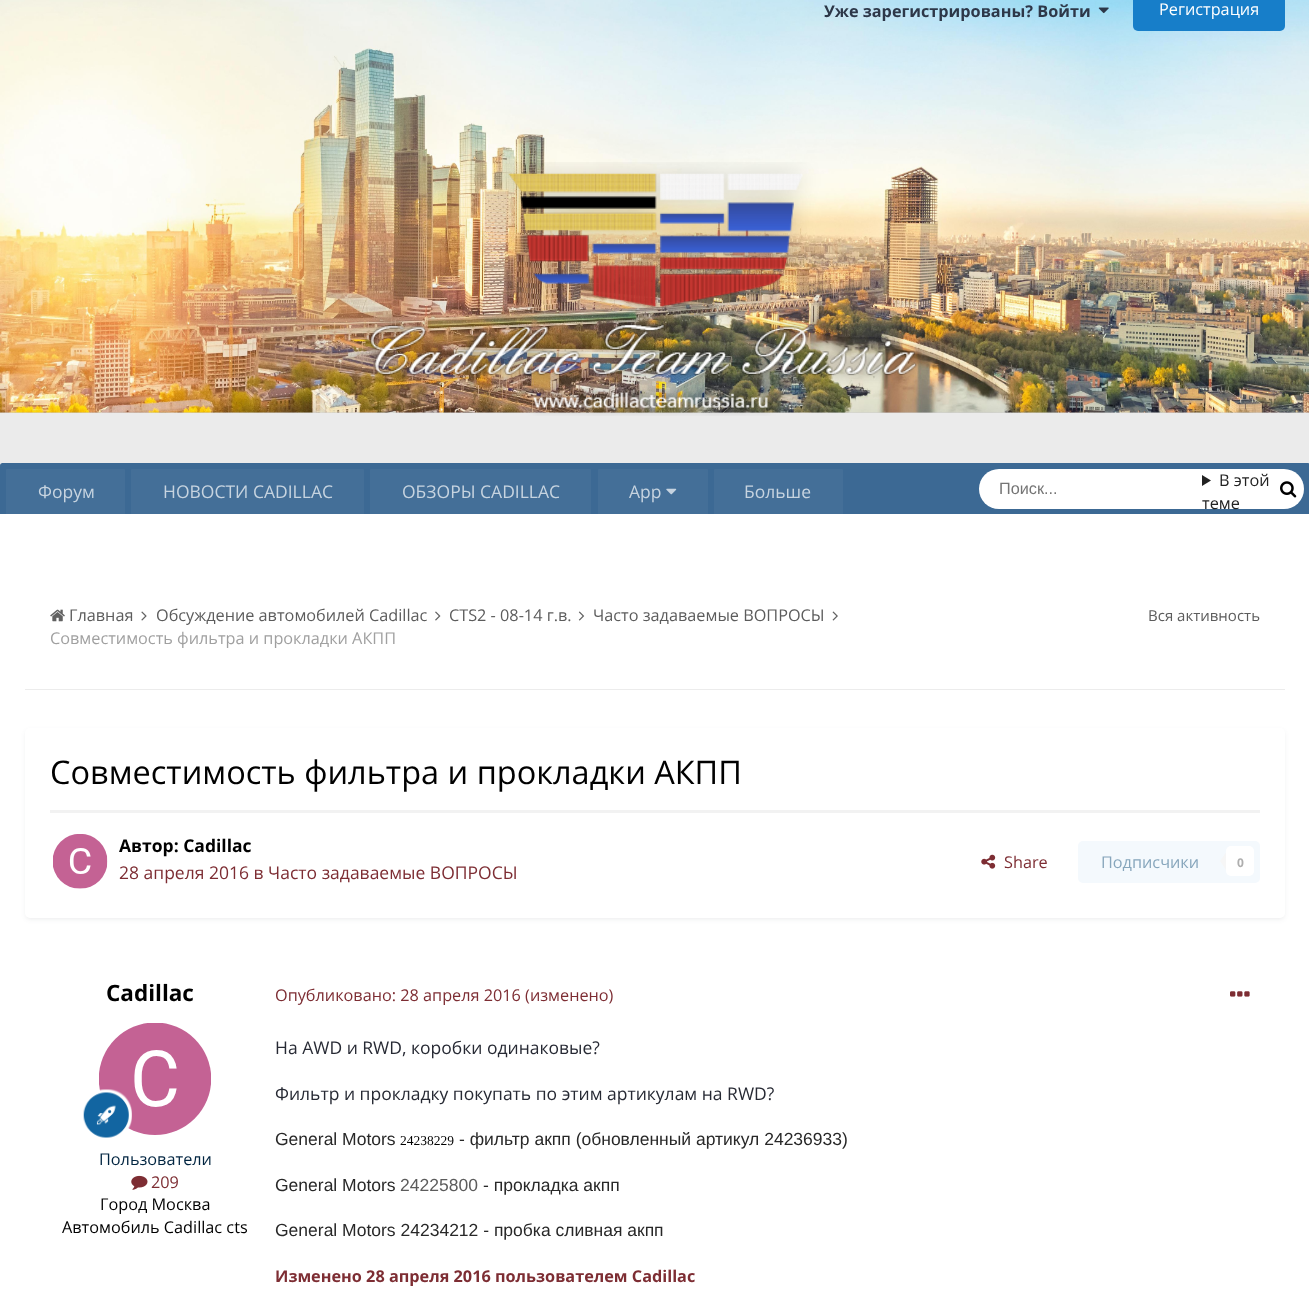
<?xml version="1.0" encoding="UTF-8"?>
<svg xmlns="http://www.w3.org/2000/svg" xmlns:xlink="http://www.w3.org/1999/xlink" width="1309" height="1311">
  <rect width="100%" height="100%" fill="#ebebeb" />
  <rect y="412" width="1309" height="1" fill="#cfcfcf" />
  <image x="0" y="0" width="1309" height="413" xlink:href="image1.png" />
  <image x="1098" y="7" width="11" height="7" xlink:href="image2.png" />
  <rect x="1133" y="-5" width="152" height="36" rx="5" fill="#177ec9" />
  <image x="363" y="162" width="558" height="254" xlink:href="image3.png" />
  <path d="M 2.5 463 h 1305 c 1.5 0 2.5 1 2.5 2.5 v 98.5 h -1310 v -98.5 c 0 -1.5 1 -2.5 2.5 -2.5 z" fill="#3c6994" />
  <path d="M 7 469 h 117 c 0.5 0 1 0.5 1 1 v 44 h -119 v -44 c 0 -0.5 0.5 -1 1 -1 z" fill="#446f98" />
  <path d="M 132 469 h 231 c 0.5 0 1 0.5 1 1 v 44 h -233 v -44 c 0 -0.5 0.5 -1 1 -1 z" fill="#446f98" />
  <path d="M 371 469 h 219 c 0.5 0 1 0.5 1 1 v 44 h -221 v -44 c 0 -0.5 0.5 -1 1 -1 z" fill="#446f98" />
  <path d="M 599 469 h 108 c 0.5 0 1 0.5 1 1 v 44 h -110 v -44 c 0 -0.5 0.5 -1 1 -1 z" fill="#446f98" />
  <image x="666" y="488" width="11" height="7" xlink:href="image4.png" />
  <path d="M 715 469 h 127 c 0.5 0 1 0.5 1 1 v 44 h -129 v -44 c 0 -0.5 0.5 -1 1 -1 z" fill="#446f98" />
  <rect y="514" width="1309" height="50" fill="#ffffff" />
  <rect x="979" y="469" width="325" height="40" rx="20" fill="#ffffff" />
  <path d="M 1202 475 l 9 5.5 l -9 5.5 z" fill="#222222" />
  <image x="1280" y="481" width="17" height="17" xlink:href="image5.png" />
  <rect y="564" width="1309" height="747" fill="#ffffff" />
  <rect x="25" y="689" width="1260" height="1" fill="#ececec" />
  <image x="50" y="609" width="15" height="13" xlink:href="image6.png" />
  <image x="141" y="611" width="6" height="10" xlink:href="image7.png" />
  <image x="435" y="611" width="6" height="10" xlink:href="image8.png" />
  <image x="578" y="611" width="7" height="10" xlink:href="image9.png" />
  <image x="832" y="611" width="6" height="10" xlink:href="image10.png" />
  <rect x="26" y="731" width="1258" height="188" rx="4" fill="#2d3748" fill-opacity="0.1" filter="blur(2.5px)" />
  <rect x="25" y="728" width="1260" height="190" rx="5" fill="#ffffff" />
  <rect x="50" y="810" width="1210" height="3" fill="#f2f2f2" />
  <image x="53" y="834" width="55" height="55" xlink:href="image11.png" />
  <image x="981" y="854" width="15" height="15" xlink:href="image12.png" />
  <rect x="1078" y="841" width="182" height="42" rx="5" fill="#f4f9fd" />
  <path d="M 1226 852.5 v 17.5 l -6 -9 z" fill="#f6f6f6" />
  <rect x="1226" y="846" width="28" height="30" rx="5" fill="#ffffff" />
  <image x="99" y="1023" width="112" height="112" xlink:href="image13.png" />
  <image x="83" y="1089" width="49" height="49" xlink:href="image14.png" />
  <image x="131" y="1175" width="17" height="15" xlink:href="image15.png" />
  <image x="1230" y="991" width="20" height="6" xlink:href="image16.png" />
  <text x="824" y="17" style="font-family: Open Sans; font-size: 16.25px; font-weight: bold; fill: #2d3748">Уже зарегистрированы? Войти</text>
  <text x="1159" y="15" style="font-family: Open Sans; font-size: 16.25px; fill: #ffffff">Регистрация</text>
  <text x="38" y="498" style="font-family: Open Sans; font-size: 17.5px; fill: #c7d4e0">Форум</text>
  <text x="163" y="498" style="font-family: Open Sans; font-size: 17.5px; fill: #c7d4e0">НОВОСТИ CADILLAC</text>
  <text x="402" y="498" style="font-family: Open Sans; font-size: 17.5px; fill: #c7d4e0">ОБЗОРЫ CADILLAC</text>
  <text x="629" y="498" style="font-family: Open Sans; font-size: 17.5px; fill: #c7d4e0">App</text>
  <text x="744" y="498" style="font-family: Open Sans; font-size: 17.5px; fill: #c7d4e0">Больше</text>
  <text x="999" y="494" style="font-family: Liberation Sans; font-size: 16.25px; fill: #757575">Поиск...</text>
  <text x="1219" y="486" style="font-family: Open Sans; font-size: 16.25px; fill: #222222">В этой</text>
  <text x="1202" y="509" style="font-family: Open Sans; font-size: 16.25px; fill: #222222">теме</text>
  <text x="69" y="621" style="font-family: Open Sans; font-size: 16.25px; fill: #5c5c5c">Главная</text>
  <text x="156" y="621" style="font-family: Open Sans; font-size: 16.25px; fill: #5c5c5c">Обсуждение автомобилей Cadillac</text>
  <text x="449" y="621" style="font-family: Open Sans; font-size: 16.25px; fill: #5c5c5c">CTS2 - 08-14 г.в.</text>
  <text x="593" y="621" style="font-family: Open Sans; font-size: 16.25px; fill: #5c5c5c">Часто задаваемые ВОПРОСЫ</text>
  <text x="50" y="644" style="font-family: Open Sans; font-size: 16.25px; fill: #a0a0a0">Совместимость фильтра и прокладки АКПП</text>
  <text x="1148" y="621" style="font-family: Open Sans; font-size: 15px; fill: #5c5c5c">Вся активность</text>
  <text x="50" y="784" style="font-family: Open Sans; font-size: 32.5px; fill: #000000">Совместимость фильтра и прокладки АКПП</text>
  <text x="119" y="852" style="font-family: Open Sans; font-size: 17.5px; font-weight: bold; fill: #000000">Автор: Cadillac</text>
  <text x="119" y="879" style="font-family: Open Sans; font-size: 17.5px; fill: #7d2d33">28 апреля 2016 в Часто задаваемые ВОПРОСЫ</text>
  <text x="1004" y="868" style="font-family: Open Sans; font-size: 16.25px; fill: #7d2d33">Share</text>
  <text x="1101" y="868" style="font-family: Open Sans; font-size: 16.25px; fill: #87a6bc">Подписчики</text>
  <text x="1237" y="867" style="font-family: Open Sans; font-size: 12px; font-weight: bold; fill: #aeaeae">0</text>
  <text x="106" y="1001" style="font-family: Open Sans; font-size: 22.5px; font-weight: bold; fill: #000000">Cadillac</text>
  <text x="99" y="1165" style="font-family: Open Sans; font-size: 16.25px; fill: #002440">Пользователи</text>
  <text x="151" y="1188" style="font-family: Open Sans; font-size: 16.25px; fill: #7d2d33">209</text>
  <text x="100" y="1210" style="font-family: Open Sans; font-size: 16.25px; fill: #000000">Город Москва</text>
  <text x="62" y="1233" style="font-family: Open Sans; font-size: 16.25px; fill: #000000">Автомобиль Cadillac cts</text>
  <text x="275" y="1001" style="font-family: Open Sans; font-size: 16.25px; fill: #7d2d33">Опубликовано: 28 апреля 2016 (изменено)</text>
  <text x="275" y="1054" style="font-family: Open Sans; font-size: 17.5px; fill: #272a34">На AWD и RWD, коробки одинаковые?</text>
  <text x="275" y="1100" style="font-family: Open Sans; font-size: 17.5px; fill: #272a34">Фильтр и прокладку покупать по этим артикулам на RWD?</text>
  <text x="275" y="1145" style="font-family: Liberation Sans; font-size: 17.5px; fill: #282828">General Motors</text>
  <text x="400" y="1145" style="font-family: Liberation Serif; font-size: 13.5px; fill: #000000">24238229</text>
  <text x="459" y="1145" style="font-family: Liberation Sans; font-size: 17.5px; fill: #282828">- фильтр акпп (обновленный артикул 24236933)</text>
  <text x="275" y="1191" style="font-family: Liberation Sans; font-size: 17.5px; fill: #282828">General Motors</text>
  <text x="400" y="1191" style="font-family: Liberation Sans; font-size: 17.5px; fill: #5c5c5c">24225800</text>
  <text x="483" y="1191" style="font-family: Liberation Sans; font-size: 17.5px; fill: #282828">- прокладка акпп</text>
  <text x="275" y="1236" style="font-family: Liberation Sans; font-size: 17.5px; fill: #282828">General Motors 24234212 - пробка сливная акпп</text>
  <text x="275" y="1282" style="font-family: Open Sans; font-size: 16.25px; font-weight: bold; fill: #7d2d33">Изменено 28 апреля 2016 пользователем Cadillac</text>
</svg>
